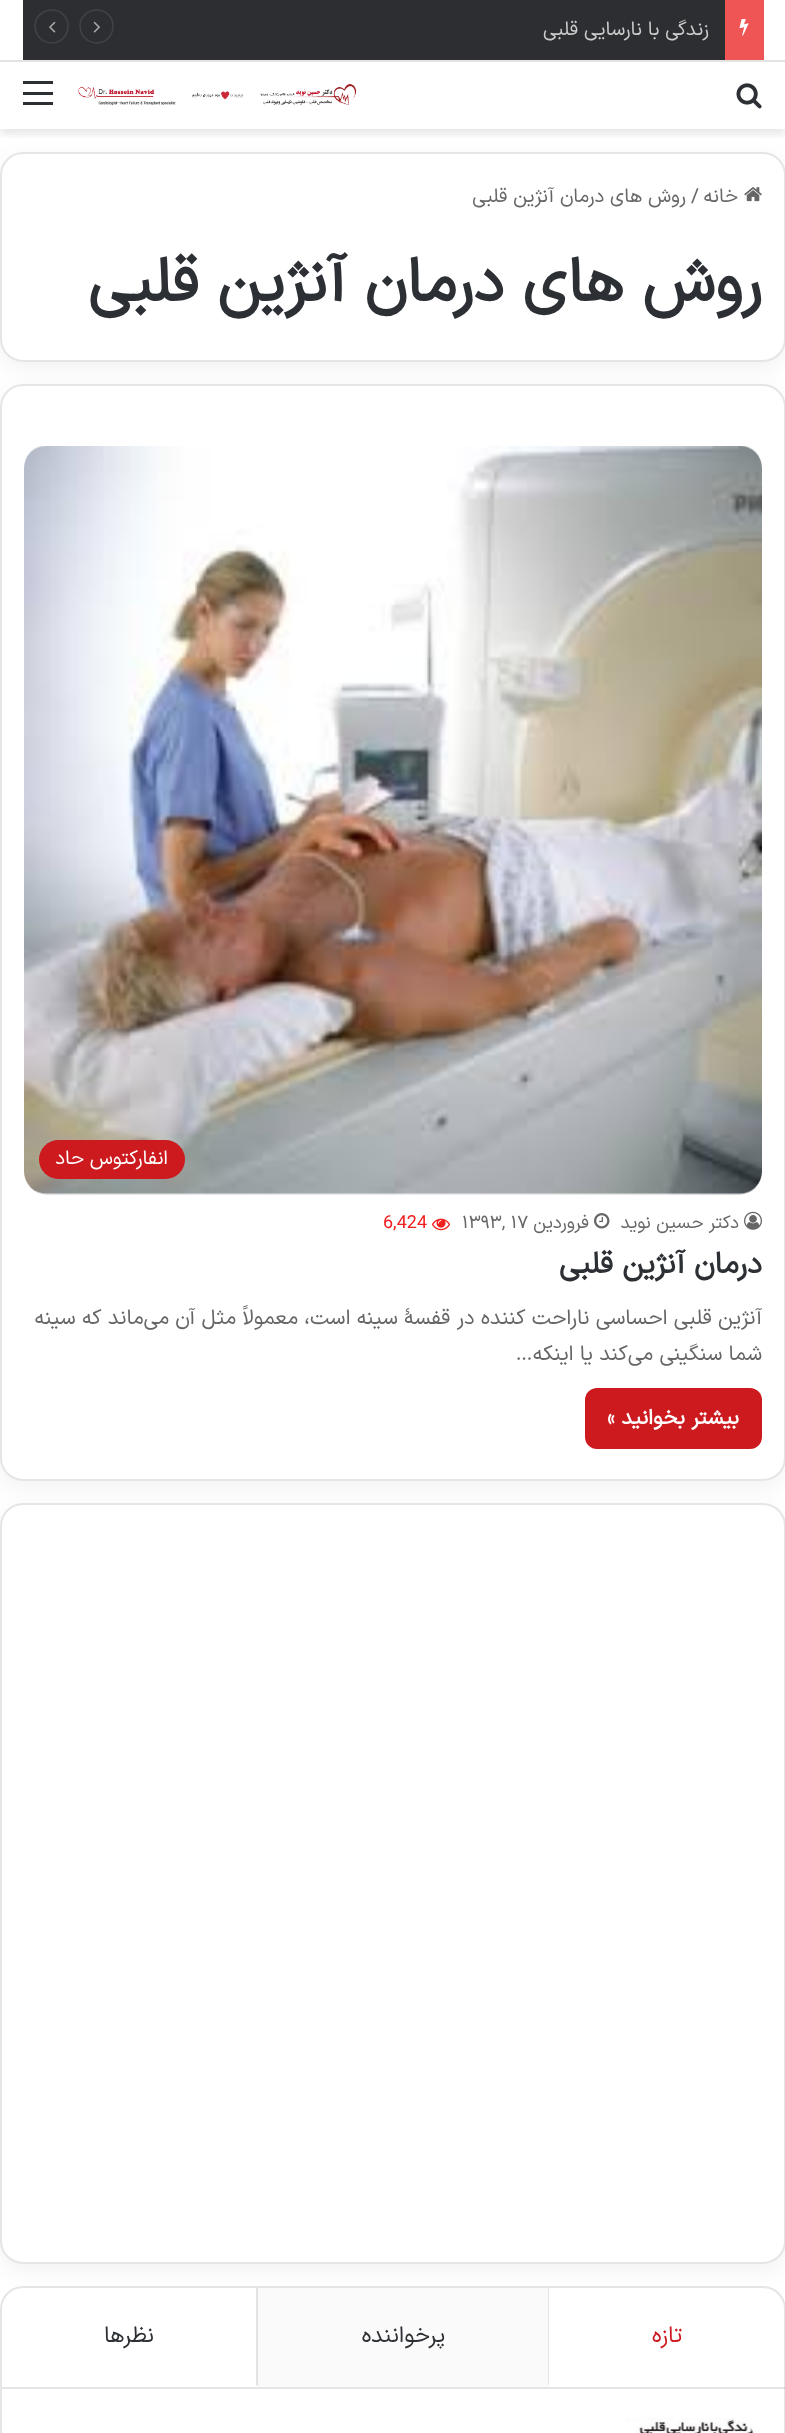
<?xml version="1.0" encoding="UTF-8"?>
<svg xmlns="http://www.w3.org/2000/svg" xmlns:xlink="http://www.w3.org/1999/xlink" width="785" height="2433">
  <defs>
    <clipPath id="clip1"><rect x="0" y="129" width="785" height="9" /></clipPath>
  </defs>
  <rect width="100%" height="100%" fill="#ffffff" />
  <g clip-path="url(#clip1)">
    <rect y="66" width="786" height="68" fill="#000000" fill-opacity="0.1" filter="blur(5px)" />
  </g>
  <rect y="60" width="785" height="2" fill="#e3e3e3" />
  <rect x="23" width="702" height="60" fill="#2c2e32" />
  <rect x="725" width="39" height="60" fill="#f05555" />
  <image x="739" y="19" width="10" height="17" xlink:href="image1.png" />
  <path d="M 97 43 c -9.5 0 -17 -7.5 -17 -17 c 0 -9 7.5 -16 17 -16 c 9 0 16 7 16 16 c 0 9.5 -7 17 -16 17 z" fill="none" stroke="#414347" stroke-width="1.5" />
  <image x="93" y="21" width="7" height="12" xlink:href="image2.png" />
  <path d="M 52 43 c -9.5 0 -17 -7.5 -17 -17 c 0 -9 7.5 -16 17 -16 c 9 0 16 7 16 16 c 0 9.5 -7 17 -16 17 z" fill="none" stroke="#414347" stroke-width="1.5" />
  <image x="49" y="21" width="7" height="12" xlink:href="image3.png" />
  <image x="736" y="83" width="26" height="26" xlink:href="image4.png" />
  <image x="78" y="83" width="279" height="23" xlink:href="image5.png" />
  <rect x="23" y="92" width="30" height="3" fill="#2c2f34" />
  <rect x="23" y="81" width="30" height="3" fill="#2c2f34" />
  <rect x="23" y="102" width="30" height="3" fill="#2c2f34" />
  <rect y="159" width="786" height="210" rx="23" fill="#000000" fill-opacity="0.05" filter="blur(11px)" />
  <rect y="152" width="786" height="210" rx="23" fill="#ffffff" />
  <rect x="1" y="153" width="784" height="208" rx="22" fill="none" stroke="#000000" stroke-opacity="0.1" stroke-width="2" />
  <image x="744" y="187" width="18" height="15" xlink:href="image6.png" />
  <rect y="392" width="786" height="1096" rx="23" fill="#000000" fill-opacity="0.05" filter="blur(11px)" />
  <rect y="384" width="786" height="1097" rx="23" fill="#ffffff" />
  <rect x="1" y="385" width="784" height="1095" rx="22" fill="none" stroke="#000000" stroke-opacity="0.1" stroke-width="2" />
  <image x="24" y="446" width="738" height="749" xlink:href="image7.png" />
  <rect x="39" y="1140" width="146" height="39" rx="19.5" fill="#cd1a1f" />
  <image x="744" y="1211" width="18" height="19" xlink:href="image8.png" />
  <image x="594" y="1213" width="16" height="16" xlink:href="image9.png" />
  <image x="432" y="1218" width="18" height="13" xlink:href="image10.png" />
  <rect x="585" y="1388" width="177" height="61" rx="12" fill="#cd1a1f" />
  <rect y="1511" width="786" height="760" rx="23" fill="#000000" fill-opacity="0.05" filter="blur(11px)" />
  <rect y="1503" width="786" height="761" rx="23" fill="#ffffff" />
  <rect x="1" y="1504" width="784" height="759" rx="22" fill="none" stroke="#000000" stroke-opacity="0.1" stroke-width="2" />
  <rect x="1" y="2287" width="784" height="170" rx="22" fill="none" stroke="#e5e5e5" stroke-width="2" />
  <rect x="2" y="2387" width="783" height="2" fill="#000000" fill-opacity="0.1" />
  <path d="M 548 2288 v 98 l 1 -1 v -97 z" fill="#e5e5e5" />
  <rect x="257" y="2288" width="291" height="99" fill="#fafafa" />
  <path d="M 256 2386 v -98 h 2 v 97 z" fill="#000000" fill-opacity="0.1" />
  <image x="626" y="2418" width="128" height="15" xlink:href="image11.png" />
  <text x="709" y="35" style="font-family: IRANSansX; font-size: 19.5px; direction: rtl; fill: #cccccc">زندگی با نارسایی قلبی</text>
  <text x="738" y="202" style="font-family: IRANSansX; font-size: 19.5px; direction: rtl; fill: #666666">خانه</text>
  <text x="691" y="202" style="font-family: IRANSansX; font-size: 19.5px; fill: #666666">/</text>
  <text x="686" y="202" style="font-family: IRANSansX; font-size: 19.5px; direction: rtl; fill: #666666">روش های درمان آنژین قلبی</text>
  <text x="762" y="301" style="font-family: IRANSansX; font-size: 61.5px; font-weight: bold; direction: rtl; fill: #2c2f34">روش های درمان آنژین قلبی</text>
  <text x="168" y="1164" style="font-family: IRANSansX; font-size: 19.5px; direction: rtl; fill: #ffffff">انفاركتوس حاد</text>
  <text x="739" y="1228" style="font-family: IRANSansX; font-size: 18px; direction: rtl; fill: #666666">دکتر حسین نوید</text>
  <text x="589" y="1228" style="font-family: IRANSansX; font-size: 18px; direction: rtl; fill: #666666">فروردین</text>
  <text x="462" y="1228" style="font-family: IRANSansX; font-size: 18px; fill: #666666">۱۳۹۳, ۱۷</text>
  <text x="383" y="1228" style="font-family: IRANSansX; font-size: 18px; fill: #f11e1e">6,424</text>
  <text x="762" y="1273" style="font-family: IRANSansX; font-size: 30px; font-weight: bold; direction: rtl; fill: #2c2f34">درمان آنژین قلبی</text>
  <text x="762" y="1324" style="font-family: IRANSansX; font-size: 21px; direction: rtl; fill: #666666">آنژین قلبی احساسی ناراحت کننده در قفسهٔ سینه است، معمولاً مثل آن می‌ماند که سینه</text>
  <text x="762" y="1360" style="font-family: IRANSansX; font-size: 21px; direction: rtl; fill: #666666">شما سنگینی می‌کند یا اینکه…</text>
  <text x="739" y="1424" style="font-family: IRANSansX; font-size: 21px; font-weight: bold; direction: rtl; fill: #ffffff">بیشتر بخوانید »</text>
  <text x="682" y="2342" style="font-family: IRANSansX; font-size: 22.5px; direction: rtl; fill: #cd1a1f">تازه</text>
  <text x="445" y="2342" style="font-family: IRANSansX; font-size: 22.5px; direction: rtl; fill: #2c2f34">پرخواننده</text>
  <text x="154" y="2342" style="font-family: IRANSansX; font-size: 22.5px; direction: rtl; fill: #2c2f34">نظرها</text>
</svg>
